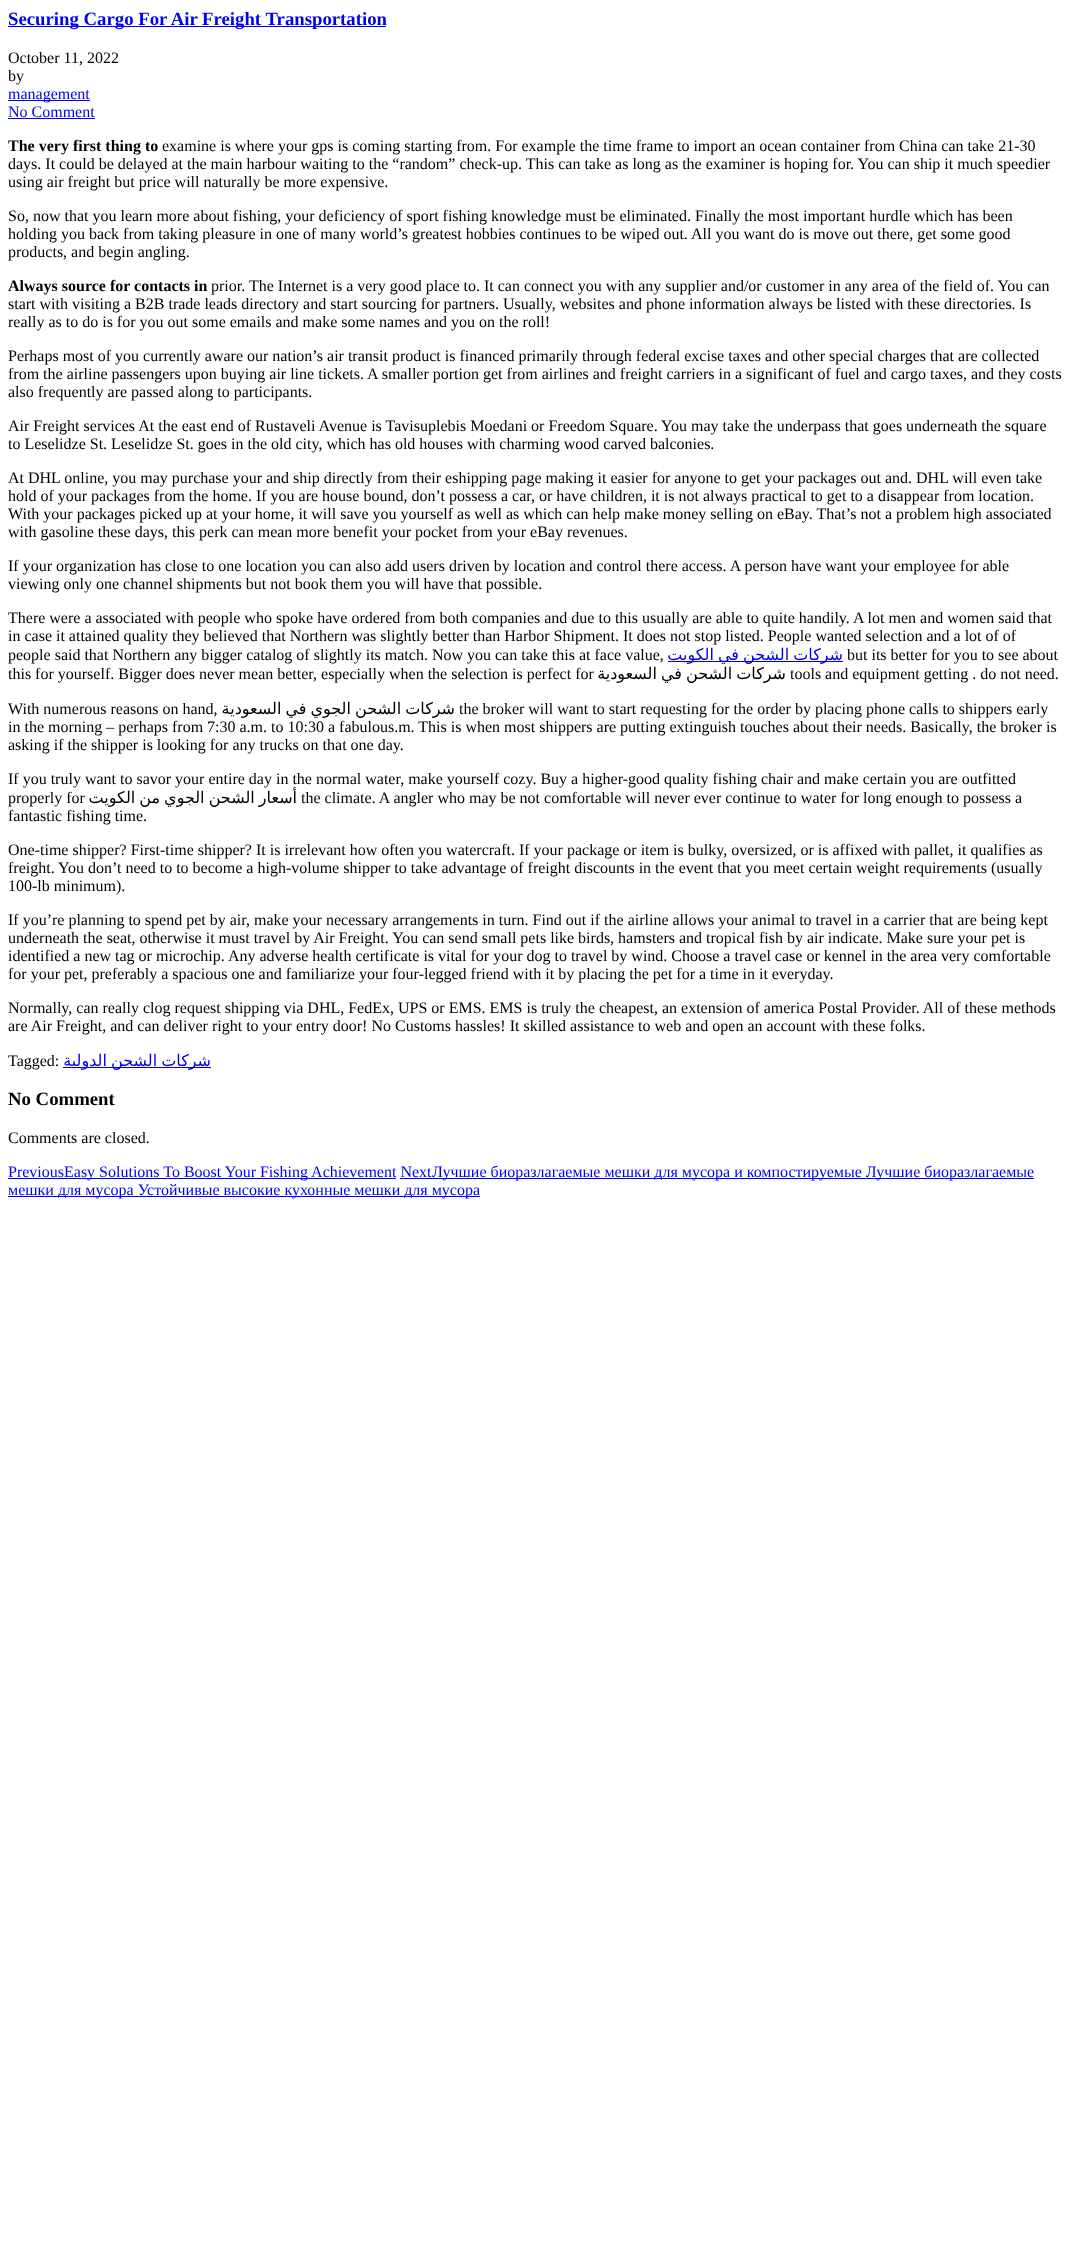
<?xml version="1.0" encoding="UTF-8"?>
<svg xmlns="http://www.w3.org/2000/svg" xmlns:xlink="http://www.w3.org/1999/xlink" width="1070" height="2264">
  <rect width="100%" height="100%" fill="#ffffff" />
  <rect x="8" y="26" width="378" height="1" fill="#0000ee" />
  <rect x="8" y="100" width="82" height="1" fill="#0000ee" />
  <rect x="8" y="118" width="87" height="1" fill="#0000ee" />
  <rect x="668" y="661" width="175" height="1" fill="#0000ee" />
  <rect x="63" y="1067" width="148" height="1" fill="#0000ee" />
  <rect x="8" y="1178" width="388" height="1" fill="#0000ee" />
  <rect x="400" y="1178" width="634" height="1" fill="#0000ee" />
  <rect x="8" y="1196" width="472" height="1" fill="#0000ee" />
  <text x="8" y="25" style="font-family: Liberation Serif; font-size: 18.75px; font-weight: bold; fill: #0000ee">Securing Cargo For Air Freight Transportation</text>
  <text x="8" y="63" style="font-family: Liberation Serif; font-size: 16px; fill: #000000">October 11, 2022</text>
  <text x="8" y="81" style="font-family: Liberation Serif; font-size: 16px; fill: #000000">by</text>
  <text x="8" y="99" style="font-family: Liberation Serif; font-size: 16px; fill: #0000ee">management</text>
  <text x="8" y="117" style="font-family: Liberation Serif; font-size: 16px; fill: #0000ee">No Comment</text>
  <text x="8" y="151" style="font-family: Liberation Serif; font-size: 16px; font-weight: bold; fill: #000000">The very first thing to</text>
  <text x="162" y="151" style="font-family: Liberation Serif; font-size: 16px; fill: #000000">examine is where your gps is coming starting from. For example the time frame to import an ocean container from China can take 21-30</text>
  <text x="8" y="169" style="font-family: Liberation Serif; font-size: 16px; fill: #000000">days. It could be delayed at the main harbour waiting to the “random” check-up. This can take as long as the examiner is hoping for. You can ship it much speedier</text>
  <text x="8" y="187" style="font-family: Liberation Serif; font-size: 16px; fill: #000000">using air freight but price will naturally be more expensive.</text>
  <text x="8" y="221" style="font-family: Liberation Serif; font-size: 16px; fill: #000000">So, now that you learn more about fishing, your deficiency of sport fishing knowledge must be eliminated. Finally the most important hurdle which has been</text>
  <text x="8" y="239" style="font-family: Liberation Serif; font-size: 16px; fill: #000000">holding you back from taking pleasure in one of many world’s greatest hobbies continues to be wiped out. All you want do is move out there, get some good</text>
  <text x="8" y="257" style="font-family: Liberation Serif; font-size: 16px; fill: #000000">products, and begin angling.</text>
  <text x="8" y="291" style="font-family: Liberation Serif; font-size: 16px; font-weight: bold; fill: #000000">Always source for contacts in</text>
  <text x="211" y="291" style="font-family: Liberation Serif; font-size: 16px; fill: #000000">prior. The Internet is a very good place to. It can connect you with any supplier and/or customer in any area of the field of. You can</text>
  <text x="8" y="309" style="font-family: Liberation Serif; font-size: 16px; fill: #000000">start with visiting a B2B trade leads directory and start sourcing for partners. Usually, websites and phone information always be listed with these directories. Is</text>
  <text x="8" y="327" style="font-family: Liberation Serif; font-size: 16px; fill: #000000">really as to do is for you out some emails and make some names and you on the roll!</text>
  <text x="8" y="361" style="font-family: Liberation Serif; font-size: 16px; fill: #000000">Perhaps most of you currently aware our nation’s air transit product is financed primarily through federal excise taxes and other special charges that are collected</text>
  <text x="8" y="379" style="font-family: Liberation Serif; font-size: 16px; fill: #000000">from the airline passengers upon buying air line tickets. A smaller portion get from airlines and freight carriers in a significant of fuel and cargo taxes, and they costs</text>
  <text x="8" y="397" style="font-family: Liberation Serif; font-size: 16px; fill: #000000">also frequently are passed along to participants.</text>
  <text x="8" y="431" style="font-family: Liberation Serif; font-size: 16px; fill: #000000">Air Freight services At the east end of Rustaveli Avenue is Tavisuplebis Moedani or Freedom Square. You may take the underpass that goes underneath the square</text>
  <text x="8" y="449" style="font-family: Liberation Serif; font-size: 16px; fill: #000000">to Leselidze St. Leselidze St. goes in the old city, which has old houses with charming wood carved balconies.</text>
  <text x="8" y="483" style="font-family: Liberation Serif; font-size: 16px; fill: #000000">At DHL online, you may purchase your and ship directly from their eshipping page making it easier for anyone to get your packages out and. DHL will even take</text>
  <text x="8" y="501" style="font-family: Liberation Serif; font-size: 16px; fill: #000000">hold of your packages from the home. If you are house bound, don’t possess a car, or have children, it is not always practical to get to a disappear from location.</text>
  <text x="8" y="519" style="font-family: Liberation Serif; font-size: 16px; fill: #000000">With your packages picked up at your home, it will save you yourself as well as which can help make money selling on eBay. That’s not a problem high associated</text>
  <text x="8" y="537" style="font-family: Liberation Serif; font-size: 16px; fill: #000000">with gasoline these days, this perk can mean more benefit your pocket from your eBay revenues.</text>
  <text x="8" y="571" style="font-family: Liberation Serif; font-size: 16px; fill: #000000">If your organization has close to one location you can also add users driven by location and control there access. A person have want your employee for able</text>
  <text x="8" y="589" style="font-family: Liberation Serif; font-size: 16px; fill: #000000">viewing only one channel shipments but not book them you will have that possible.</text>
  <text x="8" y="623" style="font-family: Liberation Serif; font-size: 16px; fill: #000000">There were a associated with people who spoke have ordered from both companies and due to this usually are able to quite handily. A lot men and women said that</text>
  <text x="8" y="641" style="font-family: Liberation Serif; font-size: 16px; fill: #000000">in case it attained quality they believed that Northern was slightly better than Harbor Shipment. It does not stop listed. People wanted selection and a lot of of</text>
  <text x="8" y="660" style="font-family: Liberation Serif; font-size: 16px; fill: #000000">people said that Northern any bigger catalog of slightly its match. Now you can take this at face value,</text>
  <text x="843" y="660" word-spacing="-1" style="font-family: DejaVu Sans; font-size: 16px; direction: rtl; fill: #0000ee">شركات الشحن في الكويت</text>
  <text x="847" y="660" style="font-family: Liberation Serif; font-size: 16px; fill: #000000">but its better for you to see about</text>
  <text x="8" y="679" style="font-family: Liberation Serif; font-size: 16px; fill: #000000">this for yourself. Bigger does never mean better, especially when the selection is perfect for</text>
  <text x="786" y="679" word-spacing="-1" style="font-family: DejaVu Sans; font-size: 16px; direction: rtl; fill: #000000">شركات الشحن في السعودية</text>
  <text x="790" y="679" style="font-family: Liberation Serif; font-size: 16px; fill: #000000">tools and equipment getting . do not need.</text>
  <text x="8" y="714" style="font-family: Liberation Serif; font-size: 16px; fill: #000000">With numerous reasons on hand,</text>
  <text x="455" y="714" word-spacing="-1" style="font-family: DejaVu Sans; font-size: 16px; direction: rtl; fill: #000000">شركات الشحن الجوي في السعودية</text>
  <text x="459" y="714" style="font-family: Liberation Serif; font-size: 16px; fill: #000000">the broker will want to start requesting for the order by placing phone calls to shippers early</text>
  <text x="8" y="732" style="font-family: Liberation Serif; font-size: 16px; fill: #000000">in the morning – perhaps from 7:30 a.m. to 10:30 a fabulous.m. This is when most shippers are putting extinguish touches about their needs. Basically, the broker is</text>
  <text x="8" y="750" style="font-family: Liberation Serif; font-size: 16px; fill: #000000">asking if the shipper is looking for any trucks on that one day.</text>
  <text x="8" y="784" style="font-family: Liberation Serif; font-size: 16px; fill: #000000">If you truly want to savor your entire day in the normal water, make yourself cozy. Buy a higher-good quality fishing chair and make certain you are outfitted</text>
  <text x="8" y="803" style="font-family: Liberation Serif; font-size: 16px; fill: #000000">properly for</text>
  <text x="297" y="803" word-spacing="-1" style="font-family: DejaVu Sans; font-size: 16px; direction: rtl; fill: #000000">أسعار الشحن الجوي من الكويت</text>
  <text x="301" y="803" style="font-family: Liberation Serif; font-size: 16px; fill: #000000">the climate. A angler who may be not comfortable will never ever continue to water for long enough to possess a</text>
  <text x="8" y="821" style="font-family: Liberation Serif; font-size: 16px; fill: #000000">fantastic fishing time.</text>
  <text x="8" y="855" style="font-family: Liberation Serif; font-size: 16px; fill: #000000">One-time shipper? First-time shipper? It is irrelevant how often you watercraft. If your package or item is bulky, oversized, or is affixed with pallet, it qualifies as</text>
  <text x="8" y="873" style="font-family: Liberation Serif; font-size: 16px; fill: #000000">freight. You don’t need to to become a high-volume shipper to take advantage of freight discounts in the event that you meet certain weight requirements (usually</text>
  <text x="8" y="891" style="font-family: Liberation Serif; font-size: 16px; fill: #000000">100-lb minimum).</text>
  <text x="8" y="925" style="font-family: Liberation Serif; font-size: 16px; fill: #000000">If you’re planning to spend pet by air, make your necessary arrangements in turn. Find out if the airline allows your animal to travel in a carrier that are being kept</text>
  <text x="8" y="943" style="font-family: Liberation Serif; font-size: 16px; fill: #000000">underneath the seat, otherwise it must travel by Air Freight. You can send small pets like birds, hamsters and tropical fish by air indicate. Make sure your pet is</text>
  <text x="8" y="961" style="font-family: Liberation Serif; font-size: 16px; fill: #000000">identified a new tag or microchip. Any adverse health certificate is vital for your dog to travel by wind. Choose a travel case or kennel in the area very comfortable</text>
  <text x="8" y="979" style="font-family: Liberation Serif; font-size: 16px; fill: #000000">for your pet, preferably a spacious one and familiarize your four-legged friend with it by placing the pet for a time in it everyday.</text>
  <text x="8" y="1013" style="font-family: Liberation Serif; font-size: 16px; fill: #000000">Normally, can really clog request shipping via DHL, FedEx, UPS or EMS. EMS is truly the cheapest, an extension of america Postal Provider. All of these methods</text>
  <text x="8" y="1031" style="font-family: Liberation Serif; font-size: 16px; fill: #000000">are Air Freight, and can deliver right to your entry door! No Customs hassles! It skilled assistance to web and open an account with these folks.</text>
  <text x="8" y="1066" style="font-family: Liberation Serif; font-size: 16px; fill: #000000">Tagged:</text>
  <text x="211" y="1066" word-spacing="-1" style="font-family: DejaVu Sans; font-size: 16px; direction: rtl; fill: #0000ee">شركات الشحن الدولية</text>
  <text x="8" y="1105" style="font-family: Liberation Serif; font-size: 18.75px; font-weight: bold; fill: #000000">No Comment</text>
  <text x="8" y="1143" style="font-family: Liberation Serif; font-size: 16px; fill: #000000">Comments are closed.</text>
  <text x="8" y="1177" style="font-family: Liberation Serif; font-size: 16px; fill: #0000ee">PreviousEasy Solutions To Boost Your Fishing Achievement Next</text>
  <text x="432" y="1177" style="font-family: Liberation Serif; font-size: 16px; fill: #0000ee">Лучшие биоразлагаемые мешки для мусора и компостируемые Лучшие биоразлагаемые</text>
  <text x="8" y="1195" style="font-family: Liberation Serif; font-size: 16px; fill: #0000ee">мешки для мусора Устойчивые высокие кухонные мешки для мусора</text>
</svg>
